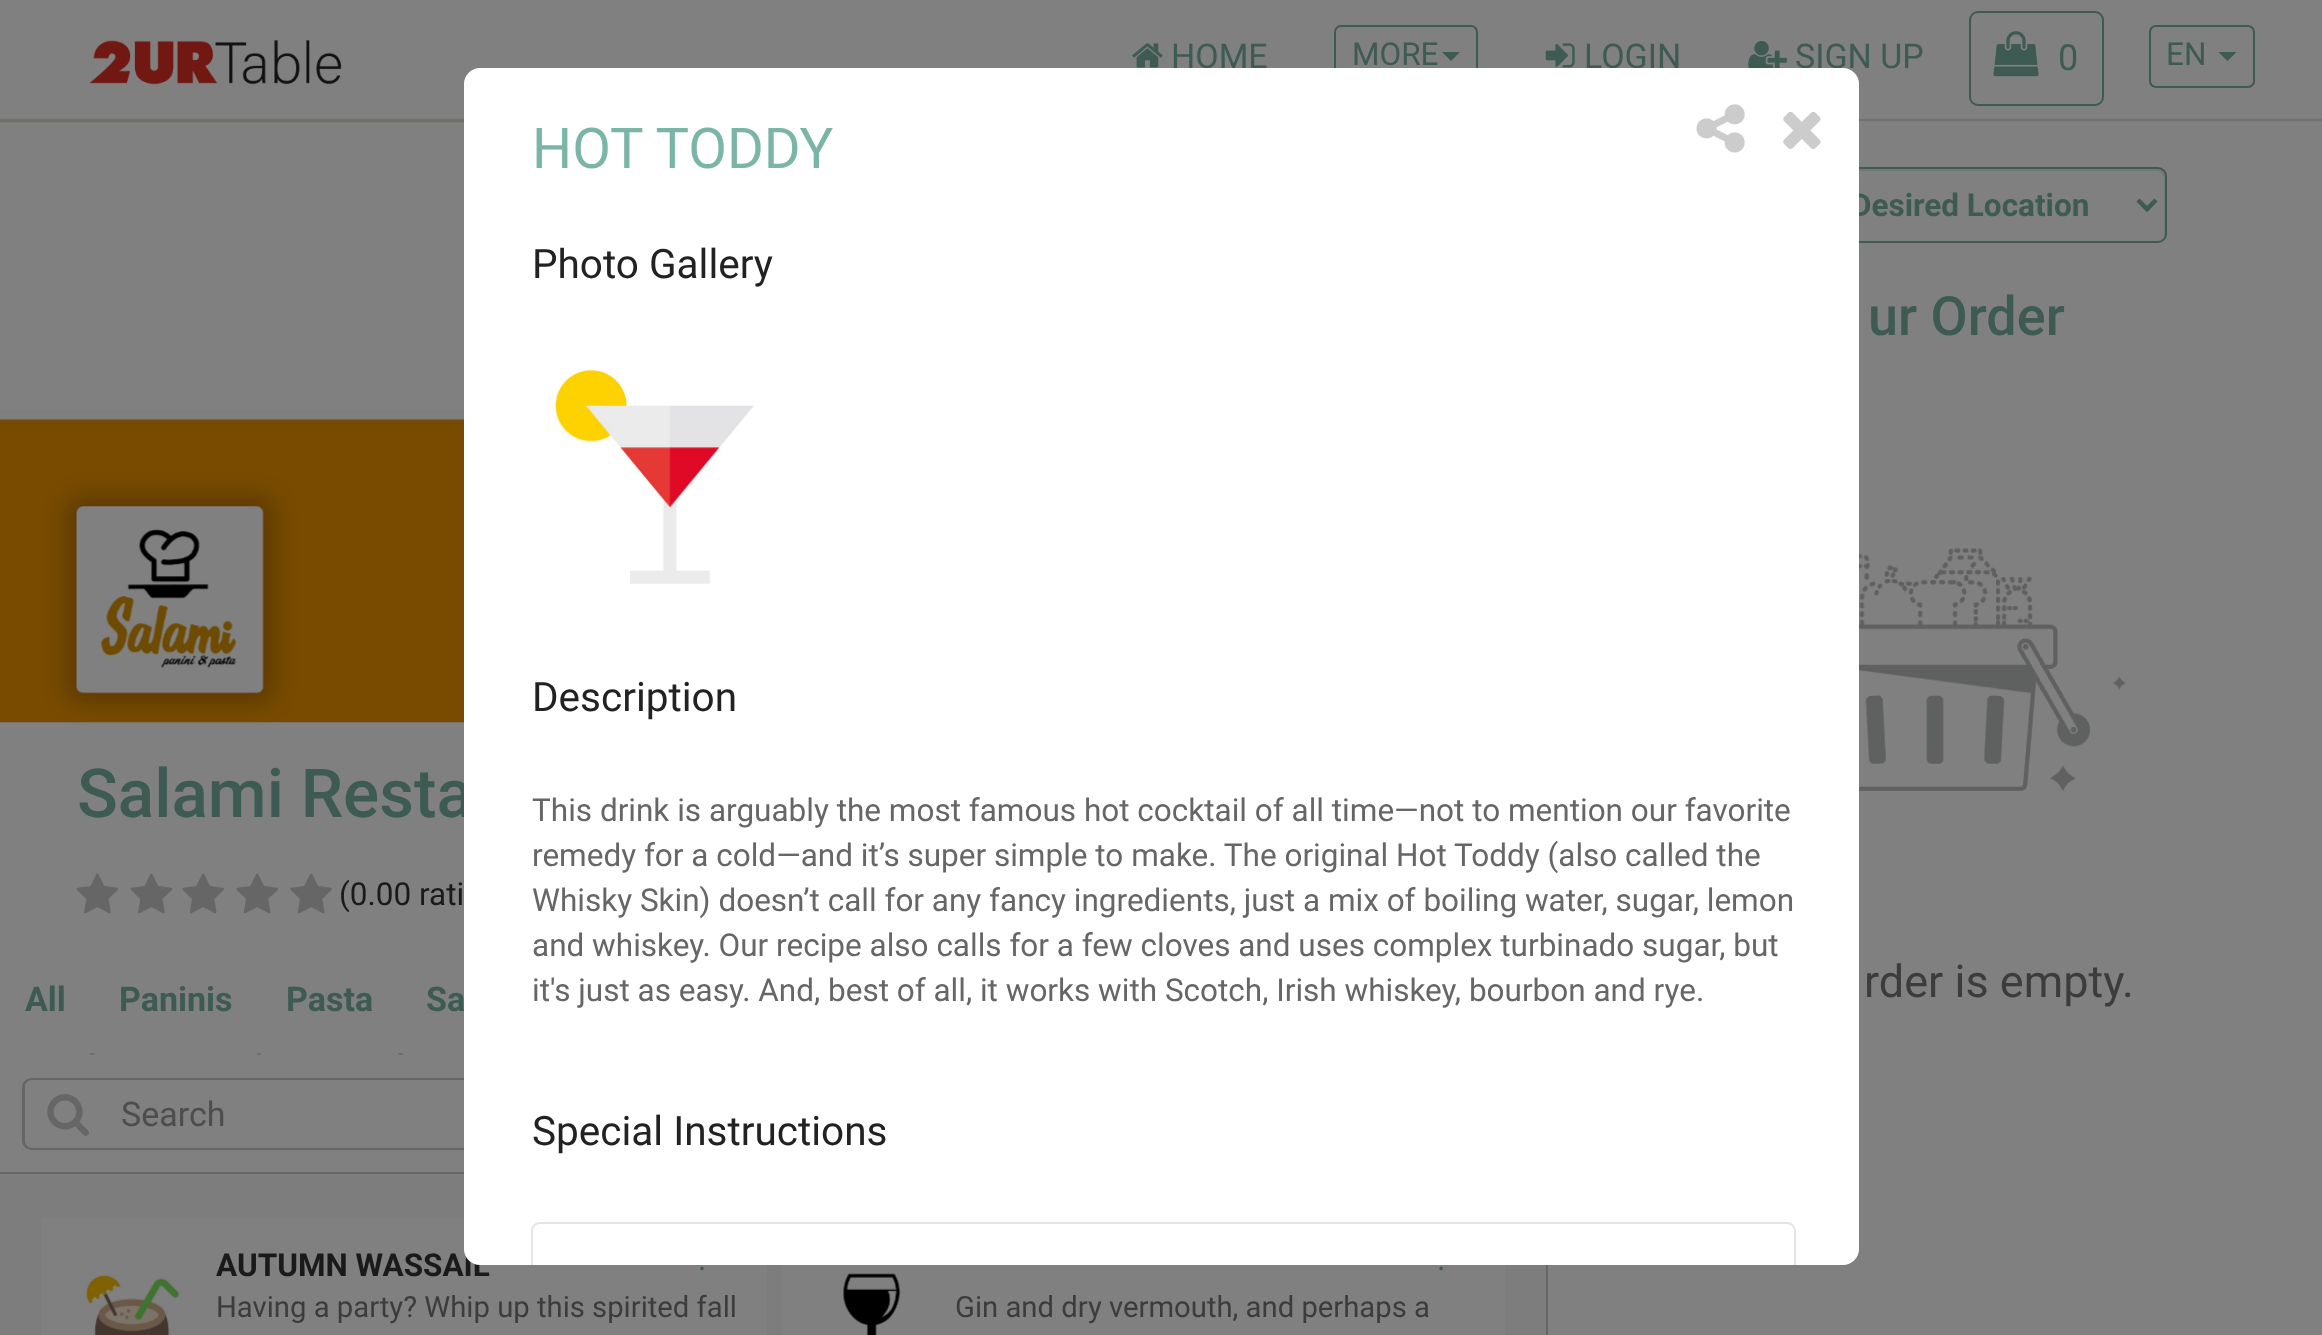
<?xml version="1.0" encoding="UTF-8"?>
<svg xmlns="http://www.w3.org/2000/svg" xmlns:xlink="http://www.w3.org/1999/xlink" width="2322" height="1335">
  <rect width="100%" height="100%" fill="#808080" />
  <rect y="119" width="2322" height="2" fill="#6f6f6f" />
  <image x="89" y="40" width="253" height="45" xlink:href="image1.png" />
  <image x="1132" y="43" width="31" height="25" xlink:href="image2.png" />
  <rect x="1335" y="26" width="142" height="61" rx="6" fill="none" stroke="#3d5b53" stroke-width="2" />
  <path d="M 1442 52 h 18 l -9 9 z" fill="#3d5b53" />
  <image x="1545" y="43" width="30" height="25" xlink:href="image3.png" />
  <image x="1748" y="41" width="39" height="27" xlink:href="image4.png" />
  <rect x="1970" y="12" width="133" height="93" rx="8" fill="none" stroke="#3d5b53" stroke-width="2" />
  <image x="1993" y="31" width="46" height="46" xlink:href="image5.png" />
  <rect x="2150" y="26" width="104" height="61" rx="6" fill="none" stroke="#3d5b53" stroke-width="2" />
  <path d="M 2218.5 52 h 18 l -9 9 z" fill="#3d5b53" />
  <rect y="122" width="1546" height="1213" fill="#7d7d7d" />
  <rect x="1546" y="1265" width="2" height="70" fill="#666666" />
  <rect y="722" width="464" height="453" fill="#808080" />
  <image x="0" y="121" width="464" height="602" xlink:href="image6.png" />
  <rect x="65" y="495" width="210" height="209" rx="18" fill="#000000" fill-opacity="0.2" filter="blur(11px)" />
  <image x="76" y="506" width="188" height="188" xlink:href="image7.png" />
  <image x="76" y="873" width="43" height="41" xlink:href="image8.png" />
  <image x="130" y="873" width="43" height="41" xlink:href="image8.png" />
  <image x="182" y="873" width="42" height="41" xlink:href="image9.png" />
  <image x="236" y="873" width="42" height="41" xlink:href="image9.png" />
  <image x="290" y="873" width="42" height="41" xlink:href="image9.png" />
  <rect x="90" y="1053" width="313" height="2" fill="#6f6f6f" />
  <rect x="95" y="1053" width="162" height="2" fill="#808080" />
  <path d="M 256 1055 h -162 l 3 -7 h 157 z" fill="#808080" />
  <rect x="261" y="1053" width="137" height="2" fill="#808080" />
  <rect y="1172" width="464" height="2" fill="#666666" />
  <path d="M 32 1078 h 74 v 72 h -74 c -5 0 -10 -4 -10 -9 v -54 c 0 -5 5 -9 10 -9 z m 0 2 h 74 v 68 h -74 c -4 0 -7 -4 -7 -7 v -54 c 0 -4 3 -7 7 -7 z" fill="#666666" fill-rule="evenodd" />
  <image x="47" y="1094" width="42" height="42" xlink:href="image10.png" />
  <path d="M 106 1078 h 1408 c 5 0 9 4 9 9 v 54 c 0 5 -4 9 -9 9 h -1408 z m 0 2 h 1408 c 4 0 7 3 7 7 v 54 c 0 3 -3 7 -7 7 h -1408 z" fill="#666666" fill-rule="evenodd" />
  <rect x="41" y="1217" width="726" height="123" rx="5" fill="#808080" />
  <image x="86" y="1275" width="94" height="60" xlink:href="image11.png" />
  <rect x="781" y="1265" width="724" height="70" fill="#808080" />
  <image x="843" y="1273" width="58" height="62" xlink:href="image12.png" />
  <path d="M 1712 171 h 446 c 3 0 6 3 6 7 v 60 c 1 -1 1 -3 1 -4 v -58 c 0 -4 -3 -7 -7 -7 h -445 c -4 0 -7 3 -7 7 v 2 c 0 -4 3 -7 6 -7 z" fill="#767676" />
  <rect x="1704" y="168" width="462" height="74" rx="8" fill="none" stroke="#3d5b53" stroke-width="2" />
  <path d="M 2138 200 l 9 9 l 9 -9" fill="none" stroke="#3d5b53" stroke-width="4.5" />
  <image x="1859" y="543" width="267" height="248" xlink:href="image13.png" />
  <text x="1171" y="68" style="font-family: Roboto; font-size: 34px; fill: #3d5b53">HOME</text>
  <text x="1352" y="65" style="font-family: Roboto; font-size: 31.5px; fill: #3d5b53">MORE</text>
  <text x="1584" y="68" style="font-family: Roboto; font-size: 34px; fill: #3d5b53">LOGIN</text>
  <text x="1795" y="68" style="font-family: Roboto; font-size: 34px; fill: #3d5b53">SIGN UP</text>
  <text x="2058" y="70" style="font-family: Roboto; font-size: 36px; fill: #3d5b53">0</text>
  <text x="2166" y="65" style="font-family: Roboto; font-size: 31.5px; fill: #3d5b53">EN</text>
  <text x="77" y="817" style="font-family: Roboto; font-size: 67.5px; font-weight: 500; fill: #3d5b53">Salami Resta</text>
  <text x="339" y="905" style="font-family: Roboto; font-size: 31.5px; fill: #1a1a1a">(0.00 rati</text>
  <text x="25" y="1011" style="font-family: Roboto; font-size: 34px; font-weight: bold; fill: #3d5b53">All</text>
  <text x="119" y="1011" style="font-family: Roboto; font-size: 34px; font-weight: bold; fill: #3d5b53">Paninis</text>
  <text x="286" y="1011" style="font-family: Roboto; font-size: 34px; font-weight: bold; fill: #3d5b53">Pasta</text>
  <text x="426" y="1011" style="font-family: Roboto; font-size: 34px; font-weight: bold; fill: #3d5b53">Sa</text>
  <text x="121" y="1126" style="font-family: Roboto; font-size: 34px; fill: #4d4d4d">Search</text>
  <text x="216" y="1276" style="font-family: Roboto; font-size: 31.5px; font-weight: bold; fill: #1a1a1a">AUTUMN WASSAIL</text>
  <text x="698" y="1270" style="font-family: Roboto; font-size: 31.5px; fill: #3d5b53">.</text>
  <text x="216" y="1317" style="font-family: Roboto; font-size: 29.25px; fill: #3c3c3c">Having a party? Whip up this spirited fall</text>
  <text x="1437" y="1270" style="font-family: Roboto; font-size: 31.5px; fill: #3d5b53">.</text>
  <text x="955" y="1317" style="font-family: Roboto; font-size: 29.25px; fill: #3c3c3c">Gin and dry vermouth, and perhaps a</text>
  <text x="1851" y="216" style="font-family: Roboto; font-size: 31.5px; font-weight: bold; fill: #3d5b53">Desired Location</text>
  <text x="1868" y="335" style="font-family: Roboto; font-size: 54px; font-weight: 500; fill: #3d5b53">ur Order</text>
  <text x="1864" y="997" style="font-family: Roboto; font-size: 45px; fill: #3c3c3c">rder is empty.</text>
  <rect x="464" y="68" width="1395" height="1197" rx="16" fill="#ffffff" />
  <image x="1696" y="104" width="49" height="49" xlink:href="image14.png" />
  <image x="1783" y="111" width="38" height="38" xlink:href="image15.png" />
  <text x="532" y="168" style="font-family: Roboto; font-size: 56.25px; fill: #7ab5a6">HOT TODDY</text>
  <text x="532" y="278" style="font-family: Roboto; font-size: 40.5px; fill: #222222">Photo Gallery</text>
  <image x="555" y="369" width="199" height="215" xlink:href="image16.png" />
  <text x="532" y="711" style="font-family: Roboto; font-size: 40.5px; fill: #222222">Description</text>
  <text x="532" y="821" style="font-family: Roboto; font-size: 31.5px; fill: #666666">This drink is arguably the most famous hot cocktail of all time—not to mention our favorite</text>
  <text x="532" y="866" style="font-family: Roboto; font-size: 31.5px; fill: #666666">remedy for a cold—and it’s super simple to make. The original Hot Toddy (also called the</text>
  <text x="532" y="911" style="font-family: Roboto; font-size: 31.5px; fill: #666666">Whisky Skin) doesn’t call for any fancy ingredients, just a mix of boiling water, sugar, lemon</text>
  <text x="532" y="956" style="font-family: Roboto; font-size: 31.5px; fill: #666666">and whiskey. Our recipe also calls for a few cloves and uses complex turbinado sugar, but</text>
  <text x="532" y="1001" style="font-family: Roboto; font-size: 31.5px; fill: #666666">it's just as easy. And, best of all, it works with Scotch, Irish whiskey, bourbon and rye.</text>
  <text x="532" y="1145" style="font-family: Roboto; font-size: 40.5px; fill: #222222">Special Instructions</text>
  <path d="M 540 1222 c -5 0 -9 4 -9 9 v 34 h 2 v -34 c 0 -4 3 -7 7 -7 h 1247 c 4 0 7 3 7 7 v 34 h 2 v -34 c 0 -5 -4 -9 -9 -9 z" fill="#e4e4e4" />
</svg>
